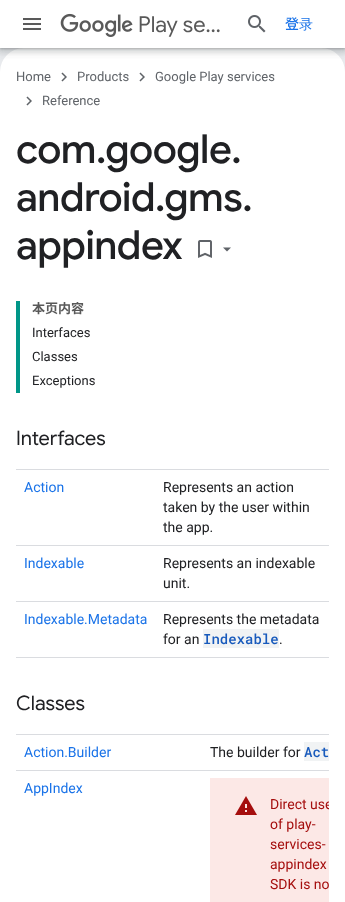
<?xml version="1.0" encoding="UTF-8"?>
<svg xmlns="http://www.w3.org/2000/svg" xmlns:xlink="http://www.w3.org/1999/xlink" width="345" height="902">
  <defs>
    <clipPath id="clip1"><rect x="16" y="734" width="313" height="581" /></clipPath>
  </defs>
  <rect width="100%" height="100%" fill="#e8eaed" />
  <rect y="48" width="345" height="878" rx="24" fill="#ffffff" />
  <rect x="-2" width="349" height="52" fill="#3c4043" fill-opacity="0.15" filter="blur(3px)" />
  <rect y="1" width="345" height="48" fill="#3c4043" fill-opacity="0.3" filter="blur(1px)" />
  <rect x="-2" y="48" width="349" height="4" fill="#3c4043" fill-opacity="0.15" filter="blur(3px)" />
  <rect width="345" height="48" fill="#ffffff" />
  <image x="23" y="18" width="18" height="12" xlink:href="image1.png" />
  <image x="60" y="13" width="73" height="24" xlink:href="image2.png" />
  <image x="248" y="15" width="18" height="18" xlink:href="image3.png" />
  <image x="61" y="72" width="6" height="10" xlink:href="image4.png" />
  <image x="139" y="72" width="6" height="10" xlink:href="image4.png" />
  <image x="26" y="96" width="6" height="10" xlink:href="image4.png" />
  <image x="198" y="240" width="14" height="18" xlink:href="image5.png" />
  <path d="M 223 247.5 h 8 l -4 4 z" fill="#5f6368" />
  <rect x="16" y="301" width="4" height="92" fill="#009688" />
  <rect x="16" y="469" width="313" height="1" fill="#dadce0" />
  <rect x="16" y="545" width="313" height="1" fill="#dadce0" />
  <rect x="16" y="601" width="313" height="1" fill="#dadce0" />
  <rect x="16" y="657" width="313" height="1" fill="#dadce0" />
  <rect x="203" y="629" width="76" height="19" fill="#f1f3f4" />
  <rect x="16" y="734" width="313" height="1" fill="#dadce0" />
  <rect x="16" y="770" width="313" height="1" fill="#dadce0" />
  <rect x="304" y="742" width="25" height="19" fill="#f1f3f4" />
  <rect x="210" y="778" width="119" height="124" fill="#fce8e6" />
  <image x="235" y="796" width="22" height="19" xlink:href="image6.png" />
  <text x="138" y="32" style="font-family: Google Sans; font-size: 22px; fill: #595959">Play se…</text>
  <text x="285" y="29" style="font-family: Noto Sans JP; font-size: 14px; font-weight: 500; fill: #1a73e8">登</text>
  <text x="299" y="29" style="font-family: WenQuanYi Zen Hei; font-size: 14px; font-weight: 500; fill: #1a73e8">录</text>
  <text x="16" y="81" style="font-family: Roboto; font-size: 13px; fill: #5f6368">Home</text>
  <text x="77" y="81" style="font-family: Roboto; font-size: 13px; fill: #5f6368">Products</text>
  <text x="155" y="81" style="font-family: Roboto; font-size: 13px; fill: #5f6368">Google Play services</text>
  <text x="42" y="105" style="font-family: Roboto; font-size: 13px; fill: #5f6368">Reference</text>
  <text x="16" y="163" style="font-family: Google Sans; font-size: 40px; font-weight: 500; letter-spacing: -0.5px; fill: #202124">com.google.</text>
  <text x="16" y="211" style="font-family: Google Sans; font-size: 40px; font-weight: 500; letter-spacing: -0.5px; fill: #202124">android.gms.</text>
  <text x="16" y="259" style="font-family: Google Sans; font-size: 40px; font-weight: 500; letter-spacing: -0.5px; fill: #202124">appindex</text>
  <text x="32" y="313" style="font-family: Noto Sans JP; font-size: 13px; font-weight: bold; fill: #595959">本页内容</text>
  <text x="32" y="337" style="font-family: Roboto; font-size: 13px; fill: #202124">Interfaces</text>
  <text x="32" y="361" style="font-family: Roboto; font-size: 13px; fill: #202124">Classes</text>
  <text x="32" y="385" style="font-family: Roboto; font-size: 13px; fill: #202124">Exceptions</text>
  <text x="16" y="445" style="font-family: Google Sans; font-size: 20px; fill: #202124">Interfaces</text>
  <text x="24" y="492" style="font-family: Roboto; font-size: 14px; fill: #1a73e8">Action</text>
  <text x="163" y="492" style="font-family: Roboto; font-size: 14px; fill: #202124">Represents an action</text>
  <text x="163" y="512" style="font-family: Roboto; font-size: 14px; fill: #202124">taken by the user within</text>
  <text x="163" y="532" style="font-family: Roboto; font-size: 14px; fill: #202124">the app.</text>
  <text x="24" y="568" style="font-family: Roboto; font-size: 14px; fill: #1a73e8">Indexable</text>
  <text x="163" y="568" style="font-family: Roboto; font-size: 14px; fill: #202124">Represents an indexable</text>
  <text x="163" y="588" style="font-family: Roboto; font-size: 14px; fill: #202124">unit.</text>
  <text x="24" y="624" style="font-family: Roboto; font-size: 14px; fill: #1a73e8">Indexable.Metadata</text>
  <text x="163" y="624" style="font-family: Roboto; font-size: 14px; fill: #202124">Represents the metadata</text>
  <text x="163" y="644" style="font-family: Roboto; font-size: 14px; fill: #202124">for an</text>
  <text x="203" y="644" style="font-family: Roboto Mono; font-size: 14px; font-weight: 500; fill: #185abc">Indexable</text>
  <text x="279" y="644" style="font-family: Roboto; font-size: 14px; fill: #202124">.</text>
  <text x="16" y="710" style="font-family: Google Sans; font-size: 20px; fill: #202124">Classes</text>
  <text x="24" y="757" style="font-family: Roboto; font-size: 14px; fill: #1a73e8">Action.Builder</text>
  <text x="210" y="757" style="font-family: Roboto; font-size: 14px; fill: #202124">The builder for</text>
  <text x="304" y="757" style="font-family: Roboto Mono; font-size: 14px; font-weight: 500; fill: #185abc">Act</text>
  <text x="24" y="793" style="font-family: Roboto; font-size: 14px; fill: #1a73e8">AppIndex</text>
  <g clip-path="url(#clip1)">
    <text x="270" y="809" style="font-family: Roboto; font-size: 14px; fill: #a50e0e">Direct use</text>
  </g>
  <text x="270" y="829" style="font-family: Roboto; font-size: 14px; fill: #a50e0e">of play-</text>
  <text x="270" y="849" style="font-family: Roboto; font-size: 14px; fill: #a50e0e">services-</text>
  <text x="270" y="869" style="font-family: Roboto; font-size: 14px; fill: #a50e0e">appindex</text>
  <g clip-path="url(#clip1)">
    <text x="270" y="889" style="font-family: Roboto; font-size: 14px; fill: #a50e0e">SDK is no</text>
  </g>
</svg>
